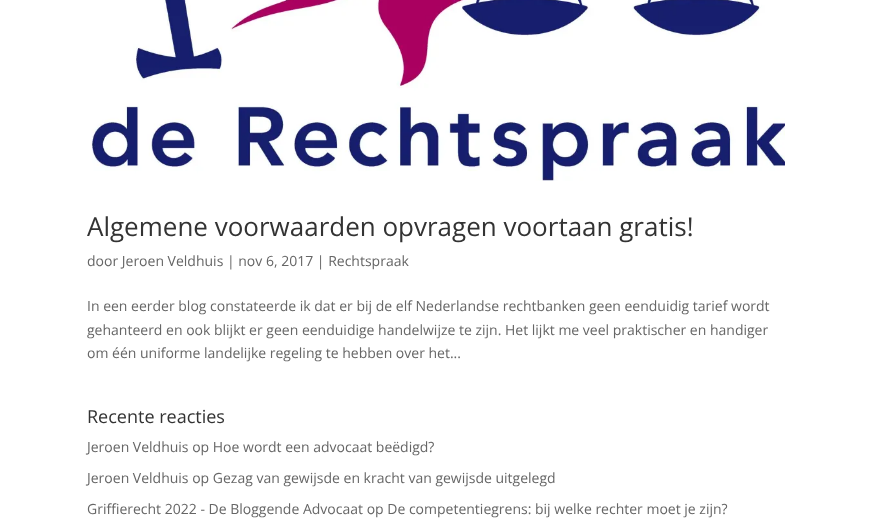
<?xml version="1.0" encoding="UTF-8"?>
<svg xmlns="http://www.w3.org/2000/svg" xmlns:xlink="http://www.w3.org/1999/xlink" width="872" height="532">
  <rect width="100%" height="100%" fill="#ffffff" />
  <image x="91" y="0" width="694" height="181" xlink:href="image1.png" />
  <text x="87" y="236" style="font-family: Open Sans; font-size: 26px; fill: #333333">Algemene voorwaarden opvragen voortaan gratis!</text>
  <text x="87" y="266" style="font-family: Open Sans; font-size: 14px; fill: #666666">door Jeroen Veldhuis | nov 6, 2017 | Rechtspraak</text>
  <text x="87" y="311" style="font-family: Open Sans; font-size: 14px; fill: #666666">In een eerder blog constateerde ik dat er bij de elf Nederlandse rechtbanken geen eenduidig tarief wordt</text>
  <text x="87" y="335" style="font-family: Open Sans; font-size: 14px; fill: #666666">gehanteerd en ook blijkt er geen eenduidige handelwijze te zijn. Het lijkt me veel praktischer en handiger</text>
  <text x="87" y="358" style="font-family: Open Sans; font-size: 14px; fill: #666666">om één uniforme landelijke regeling te hebben over het...</text>
  <text x="87" y="423" style="font-family: Open Sans; font-size: 18px; fill: #333333">Recente reacties</text>
  <text x="87" y="452" style="font-family: Open Sans; font-size: 14px; fill: #666666">Jeroen Veldhuis op Hoe wordt een advocaat beëdigd?</text>
  <text x="87" y="483" style="font-family: Open Sans; font-size: 14px; fill: #666666">Jeroen Veldhuis op Gezag van gewijsde en kracht van gewijsde uitgelegd</text>
  <text x="87" y="514" style="font-family: Open Sans; font-size: 14px; fill: #666666">Griffierecht 2022 - De Bloggende Advocaat op De competentiegrens: bij welke rechter moet je zijn?</text>
</svg>
